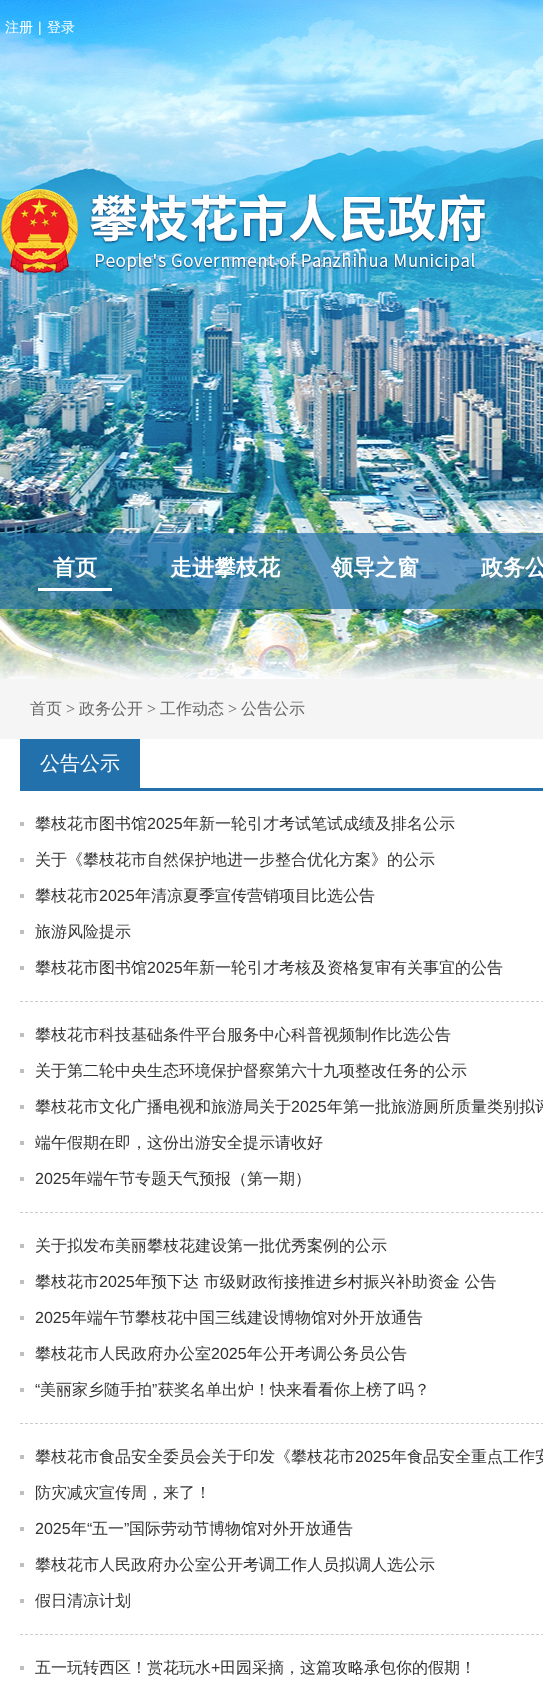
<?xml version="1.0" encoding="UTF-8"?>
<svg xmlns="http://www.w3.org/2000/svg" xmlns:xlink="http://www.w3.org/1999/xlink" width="543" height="1682">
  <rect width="100%" height="100%" fill="#ffffff" />
  <image x="0" y="0" width="543" height="679" xlink:href="image1.png" />
  <image x="1" y="189" width="486" height="84" xlink:href="image2.png" />
  <rect y="533" width="543" height="76" fill="#2271ac" fill-opacity="0.7" />
  <rect x="38" y="588" width="74" height="3" fill="#ffffff" />
  <rect y="679" width="543" height="60" fill="#f5f5f5" />
  <rect x="20" y="788" width="523" height="3" fill="#2270ac" />
  <rect x="20" y="739" width="120" height="49" fill="#2270ac" />
  <path d="M 20 1001.5 h 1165" fill="none" stroke="#cccccc" stroke-dasharray="3 2.01" />
  <rect x="20" y="822" width="4" height="4" fill="#bfbfbf" />
  <rect x="20" y="858" width="4" height="4" fill="#bfbfbf" />
  <rect x="20" y="894" width="4" height="4" fill="#bfbfbf" />
  <rect x="20" y="930" width="4" height="4" fill="#bfbfbf" />
  <rect x="20" y="966" width="4" height="4" fill="#bfbfbf" />
  <path d="M 20 1212.5 h 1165" fill="none" stroke="#cccccc" stroke-dasharray="3 2.01" />
  <rect x="20" y="1033" width="4" height="4" fill="#bfbfbf" />
  <rect x="20" y="1069" width="4" height="4" fill="#bfbfbf" />
  <rect x="20" y="1105" width="4" height="4" fill="#bfbfbf" />
  <rect x="20" y="1141" width="4" height="4" fill="#bfbfbf" />
  <rect x="20" y="1177" width="4" height="4" fill="#bfbfbf" />
  <path d="M 20 1423.5 h 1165" fill="none" stroke="#cccccc" stroke-dasharray="3 2.01" />
  <rect x="20" y="1244" width="4" height="4" fill="#bfbfbf" />
  <rect x="20" y="1280" width="4" height="4" fill="#bfbfbf" />
  <rect x="20" y="1316" width="4" height="4" fill="#bfbfbf" />
  <rect x="20" y="1352" width="4" height="4" fill="#bfbfbf" />
  <rect x="20" y="1388" width="4" height="4" fill="#bfbfbf" />
  <path d="M 20 1634.5 h 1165" fill="none" stroke="#cccccc" stroke-dasharray="3 2.01" />
  <rect x="20" y="1455" width="4" height="4" fill="#bfbfbf" />
  <rect x="20" y="1491" width="4" height="4" fill="#bfbfbf" />
  <rect x="20" y="1527" width="4" height="4" fill="#bfbfbf" />
  <rect x="20" y="1563" width="4" height="4" fill="#bfbfbf" />
  <rect x="20" y="1599" width="4" height="4" fill="#bfbfbf" />
  <rect x="20" y="1666" width="4" height="4" fill="#bfbfbf" />
  <text x="5" y="32" style="font-family: WenQuanYi Zen Hei; font-size: 14px; font-weight: 500; fill: #ffffff">注册</text>
  <text x="38" y="32" style="font-family: Liberation Sans; font-size: 14px; fill: #ffffff">|</text>
  <text x="47" y="32" style="font-family: WenQuanYi Zen Hei; font-size: 14px; font-weight: 500; fill: #ffffff">登录</text>
  <text x="53" y="575" style="font-family: WenQuanYi Zen Hei; font-size: 22px; font-weight: bold; fill: #ffffff">首页</text>
  <text x="170" y="575" style="font-family: WenQuanYi Zen Hei; font-size: 22px; font-weight: bold; fill: #ffffff">走进攀枝花</text>
  <text x="331" y="575" style="font-family: WenQuanYi Zen Hei; font-size: 22px; font-weight: bold; fill: #ffffff">领导之窗</text>
  <text x="481" y="575" style="font-family: WenQuanYi Zen Hei; font-size: 22px; font-weight: bold; fill: #ffffff">政务公</text>
  <text x="30" y="714" style="font-family: WenQuanYi Zen Hei; font-size: 16px; font-weight: 500; fill: #666666">首页</text>
  <text x="66" y="714" style="font-family: Liberation Serif; font-size: 16px; fill: #666666">&gt;</text>
  <text x="79" y="714" style="font-family: WenQuanYi Zen Hei; font-size: 16px; font-weight: 500; fill: #666666">政务公开</text>
  <text x="147" y="714" style="font-family: Liberation Serif; font-size: 16px; fill: #666666">&gt;</text>
  <text x="160" y="714" style="font-family: WenQuanYi Zen Hei; font-size: 16px; font-weight: 500; fill: #666666">工作动态</text>
  <text x="228" y="714" style="font-family: Liberation Serif; font-size: 16px; fill: #666666">&gt;</text>
  <text x="241" y="714" style="font-family: WenQuanYi Zen Hei; font-size: 16px; font-weight: 500; fill: #666666">公告公示</text>
  <text x="40" y="770" style="font-family: WenQuanYi Zen Hei; font-size: 20px; font-weight: 500; fill: #ffffff">公告公示</text>
  <text x="35" y="829" style="font-family: WenQuanYi Zen Hei; font-size: 16px; font-weight: 500; fill: #333333">攀枝花市图书馆</text>
  <text x="147" y="829" style="font-family: Liberation Sans; font-size: 16px; fill: #333333">2025</text>
  <text x="183" y="829" style="font-family: WenQuanYi Zen Hei; font-size: 16px; font-weight: 500; fill: #333333">年新一轮引才考试笔试成绩及排名公示</text>
  <text x="35" y="865" style="font-family: WenQuanYi Zen Hei; font-size: 16px; font-weight: 500; fill: #333333">关于《攀枝花市自然保护地进一步整合优化方案》的公示</text>
  <text x="35" y="901" style="font-family: WenQuanYi Zen Hei; font-size: 16px; font-weight: 500; fill: #333333">攀枝花市</text>
  <text x="99" y="901" style="font-family: Liberation Sans; font-size: 16px; fill: #333333">2025</text>
  <text x="135" y="901" style="font-family: WenQuanYi Zen Hei; font-size: 16px; font-weight: 500; fill: #333333">年清凉夏季宣传营销项目比选公告</text>
  <text x="35" y="937" style="font-family: WenQuanYi Zen Hei; font-size: 16px; font-weight: 500; fill: #333333">旅游风险提示</text>
  <text x="35" y="973" style="font-family: WenQuanYi Zen Hei; font-size: 16px; font-weight: 500; fill: #333333">攀枝花市图书馆</text>
  <text x="147" y="973" style="font-family: Liberation Sans; font-size: 16px; fill: #333333">2025</text>
  <text x="183" y="973" style="font-family: WenQuanYi Zen Hei; font-size: 16px; font-weight: 500; fill: #333333">年新一轮引才考核及资格复审有关事宜的公告</text>
  <text x="35" y="1040" style="font-family: WenQuanYi Zen Hei; font-size: 16px; font-weight: 500; fill: #333333">攀枝花市科技基础条件平台服务中心科普视频制作比选公告</text>
  <text x="35" y="1076" style="font-family: WenQuanYi Zen Hei; font-size: 16px; font-weight: 500; fill: #333333">关于第二轮中央生态环境保护督察第六十九项整改任务的公示</text>
  <text x="35" y="1112" style="font-family: WenQuanYi Zen Hei; font-size: 16px; font-weight: 500; fill: #333333">攀枝花市文化广播电视和旅游局关于</text>
  <text x="291" y="1112" style="font-family: Liberation Sans; font-size: 16px; fill: #333333">2025</text>
  <text x="327" y="1112" style="font-family: WenQuanYi Zen Hei; font-size: 16px; font-weight: 500; fill: #333333">年第一批旅游厕所质量类别拟评</text>
  <text x="35" y="1148" style="font-family: WenQuanYi Zen Hei; font-size: 16px; font-weight: 500; fill: #333333">端午假期在即，这份出游安全提示请收好</text>
  <text x="35" y="1184" style="font-family: Liberation Sans; font-size: 16px; fill: #333333">2025</text>
  <text x="71" y="1184" style="font-family: WenQuanYi Zen Hei; font-size: 16px; font-weight: 500; fill: #333333">年端午节专题天气预报（第一期）</text>
  <text x="35" y="1251" style="font-family: WenQuanYi Zen Hei; font-size: 16px; font-weight: 500; fill: #333333">关于拟发布美丽攀枝花建设第一批优秀案例的公示</text>
  <text x="35" y="1287" style="font-family: WenQuanYi Zen Hei; font-size: 16px; font-weight: 500; fill: #333333">攀枝花市</text>
  <text x="99" y="1287" style="font-family: Liberation Sans; font-size: 16px; fill: #333333">2025</text>
  <text x="135" y="1287" style="font-family: WenQuanYi Zen Hei; font-size: 16px; font-weight: 500; fill: #333333">年预下达 市级财政衔接推进乡村振兴补助资金 公告</text>
  <text x="35" y="1323" style="font-family: Liberation Sans; font-size: 16px; fill: #333333">2025</text>
  <text x="71" y="1323" style="font-family: WenQuanYi Zen Hei; font-size: 16px; font-weight: 500; fill: #333333">年端午节攀枝花中国三线建设博物馆对外开放通告</text>
  <text x="35" y="1359" style="font-family: WenQuanYi Zen Hei; font-size: 16px; font-weight: 500; fill: #333333">攀枝花市人民政府办公室</text>
  <text x="211" y="1359" style="font-family: Liberation Sans; font-size: 16px; fill: #333333">2025</text>
  <text x="247" y="1359" style="font-family: WenQuanYi Zen Hei; font-size: 16px; font-weight: 500; fill: #333333">年公开考调公务员公告</text>
  <text x="35" y="1395" style="font-family: Liberation Sans; font-size: 16px; fill: #333333">“</text>
  <text x="40" y="1395" style="font-family: WenQuanYi Zen Hei; font-size: 16px; font-weight: 500; fill: #333333">美丽家乡随手拍</text>
  <text x="152" y="1395" style="font-family: Liberation Sans; font-size: 16px; fill: #333333">”</text>
  <text x="158" y="1395" style="font-family: WenQuanYi Zen Hei; font-size: 16px; font-weight: 500; fill: #333333">获奖名单出炉！快来看看你上榜了吗？</text>
  <text x="35" y="1462" style="font-family: WenQuanYi Zen Hei; font-size: 16px; font-weight: 500; fill: #333333">攀枝花市食品安全委员会关于印发《攀枝花市</text>
  <text x="355" y="1462" style="font-family: Liberation Sans; font-size: 16px; fill: #333333">2025</text>
  <text x="391" y="1462" style="font-family: WenQuanYi Zen Hei; font-size: 16px; font-weight: 500; fill: #333333">年食品安全重点工作安</text>
  <text x="35" y="1498" style="font-family: WenQuanYi Zen Hei; font-size: 16px; font-weight: 500; fill: #333333">防灾减灾宣传周，来了！</text>
  <text x="35" y="1534" style="font-family: Liberation Sans; font-size: 16px; fill: #333333">2025</text>
  <text x="71" y="1534" style="font-family: WenQuanYi Zen Hei; font-size: 16px; font-weight: 500; fill: #333333">年</text>
  <text x="87" y="1534" style="font-family: Liberation Sans; font-size: 16px; fill: #333333">“</text>
  <text x="92" y="1534" style="font-family: WenQuanYi Zen Hei; font-size: 16px; font-weight: 500; fill: #333333">五一</text>
  <text x="124" y="1534" style="font-family: Liberation Sans; font-size: 16px; fill: #333333">”</text>
  <text x="129" y="1534" style="font-family: WenQuanYi Zen Hei; font-size: 16px; font-weight: 500; fill: #333333">国际劳动节博物馆对外开放通告</text>
  <text x="35" y="1570" style="font-family: WenQuanYi Zen Hei; font-size: 16px; font-weight: 500; fill: #333333">攀枝花市人民政府办公室公开考调工作人员拟调人选公示</text>
  <text x="35" y="1606" style="font-family: WenQuanYi Zen Hei; font-size: 16px; font-weight: 500; fill: #333333">假日清凉计划</text>
  <text x="35" y="1673" style="font-family: WenQuanYi Zen Hei; font-size: 16px; font-weight: 500; fill: #333333">五一玩转西区！赏花玩水</text>
  <text x="211" y="1673" style="font-family: Liberation Sans; font-size: 16px; fill: #333333">+</text>
  <text x="220" y="1673" style="font-family: WenQuanYi Zen Hei; font-size: 16px; font-weight: 500; fill: #333333">田园采摘，这篇攻略承包你的假期！</text>
</svg>
